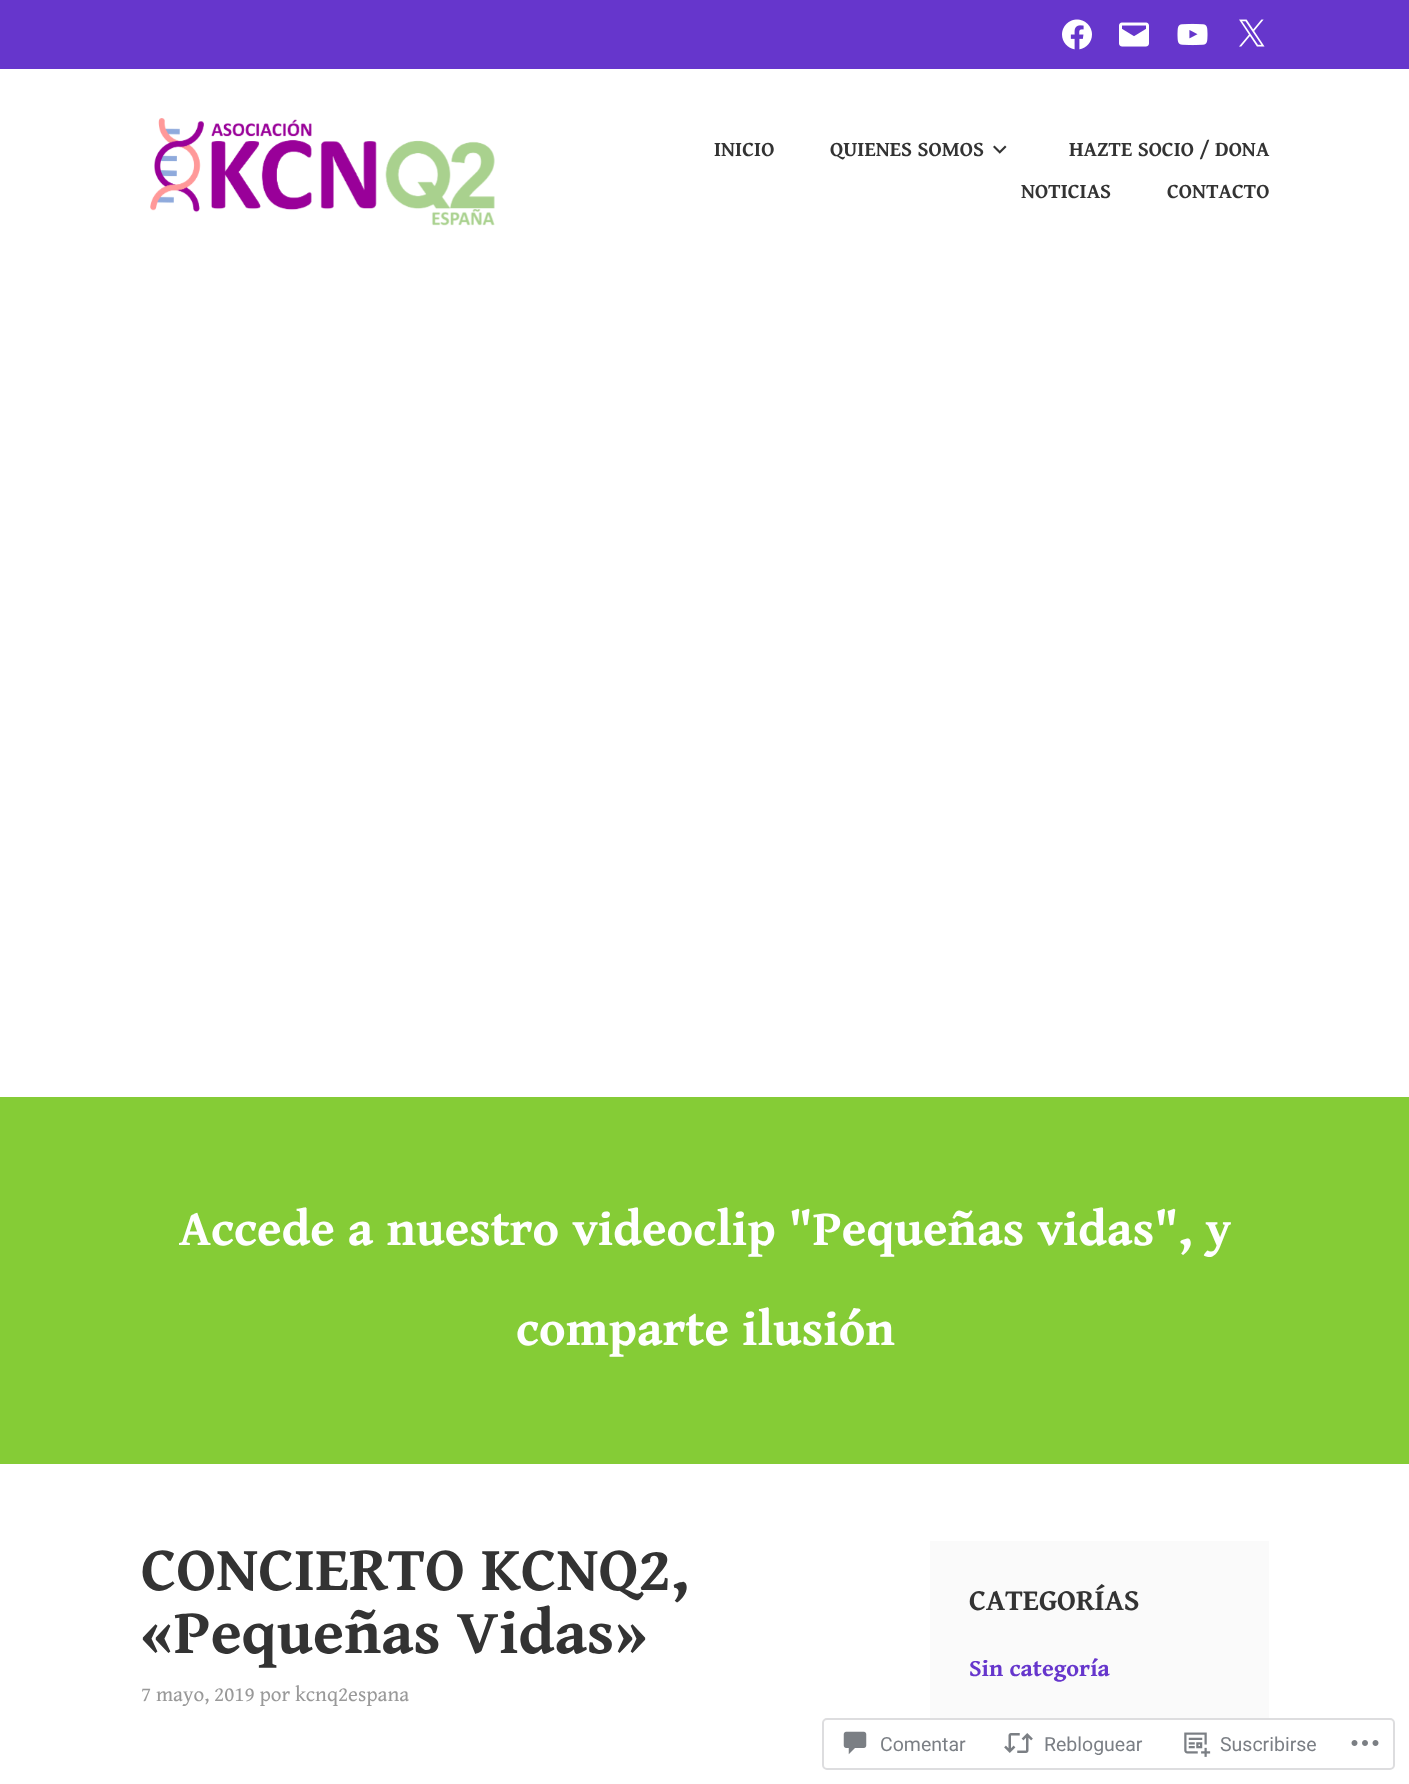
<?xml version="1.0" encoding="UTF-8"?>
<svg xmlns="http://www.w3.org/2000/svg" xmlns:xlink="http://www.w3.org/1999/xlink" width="1409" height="1784">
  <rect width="100%" height="100%" fill="#ffffff" />
  <rect width="1409" height="69" fill="#6636cc" />
  <image x="1062" y="19" width="30" height="31" xlink:href="image1.png" />
  <image x="1119" y="22" width="30" height="25" xlink:href="image2.png" />
  <image x="1177" y="23" width="31" height="23" xlink:href="image3.png" />
  <image x="1239" y="19" width="26" height="28" xlink:href="image4.png" />
  <image x="150" y="118" width="345" height="108" xlink:href="image5.png" />
  <image x="993" y="145" width="14" height="9" xlink:href="image6.png" />
  <rect y="1097" width="1409" height="367" fill="#85cc36" />
  <rect x="930" y="1541" width="339" height="186" fill="#fafafa" />
  <rect x="823" y="1719" width="571" height="50" rx="4" fill="#ffffff" fill-opacity="0.98" stroke="#dddddf" stroke-width="2" />
  <image x="843" y="1731" width="24" height="24" xlink:href="image7.png" />
  <image x="1004" y="1733" width="29" height="20" xlink:href="image8.png" />
  <image x="1184" y="1732" width="27" height="25" xlink:href="image9.png" />
  <image x="1351" y="1740" width="28" height="6" xlink:href="image10.png" />
  <text x="714" y="156" style="font-family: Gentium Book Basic; font-size: 21px; font-weight: bold; fill: #333333">INICIO</text>
  <text x="830" y="156" style="font-family: Gentium Book Basic; font-size: 21px; font-weight: bold; fill: #333333">QUIENES SOMOS</text>
  <text x="1069" y="156" style="font-family: Gentium Book Basic; font-size: 21px; font-weight: bold; fill: #333333">HAZTE SOCIO / DONA</text>
  <text x="1021" y="198" style="font-family: Gentium Book Basic; font-size: 21px; font-weight: bold; fill: #333333">NOTICIAS</text>
  <text x="1167" y="198" style="font-family: Gentium Book Basic; font-size: 21px; font-weight: bold; fill: #333333">CONTACTO</text>
  <text x="179" y="1245" style="font-family: Gentium Book Basic; font-size: 50px; font-weight: bold; fill: #ffffff">Accede a nuestro videoclip "Pequeñas vidas", y</text>
  <text x="516" y="1345" style="font-family: Gentium Book Basic; font-size: 50px; font-weight: bold; fill: #ffffff">comparte ilusión</text>
  <text x="141" y="1590" style="font-family: Gentium Book Basic; font-size: 63px; font-weight: bold; fill: #333333">CONCIERTO KCNQ2,</text>
  <text x="141" y="1653" style="font-family: Gentium Book Basic; font-size: 63px; font-weight: bold; fill: #333333">«Pequeñas Vidas»</text>
  <text x="141" y="1701" style="font-family: Gentium Book Basic; font-size: 21px; fill: #999999">7 mayo, 2019 por kcnq2espana</text>
  <text x="969" y="1610" style="font-family: Gentium Book Basic; font-size: 30px; font-weight: bold; fill: #333333">CATEGORÍAS</text>
  <text x="969" y="1676" style="font-family: Gentium Book Basic; font-size: 24px; font-weight: bold; fill: #6636cc">Sin categoría</text>
  <text x="880" y="1751" style="font-family: Roboto; font-size: 19.5px; fill: #7b7f85">Comentar</text>
  <text x="1044" y="1751" style="font-family: Roboto; font-size: 19.5px; fill: #7b7f85">Rebloguear</text>
  <text x="1220" y="1751" style="font-family: Roboto; font-size: 19.5px; fill: #7b7f85">Suscribirse</text>
</svg>
